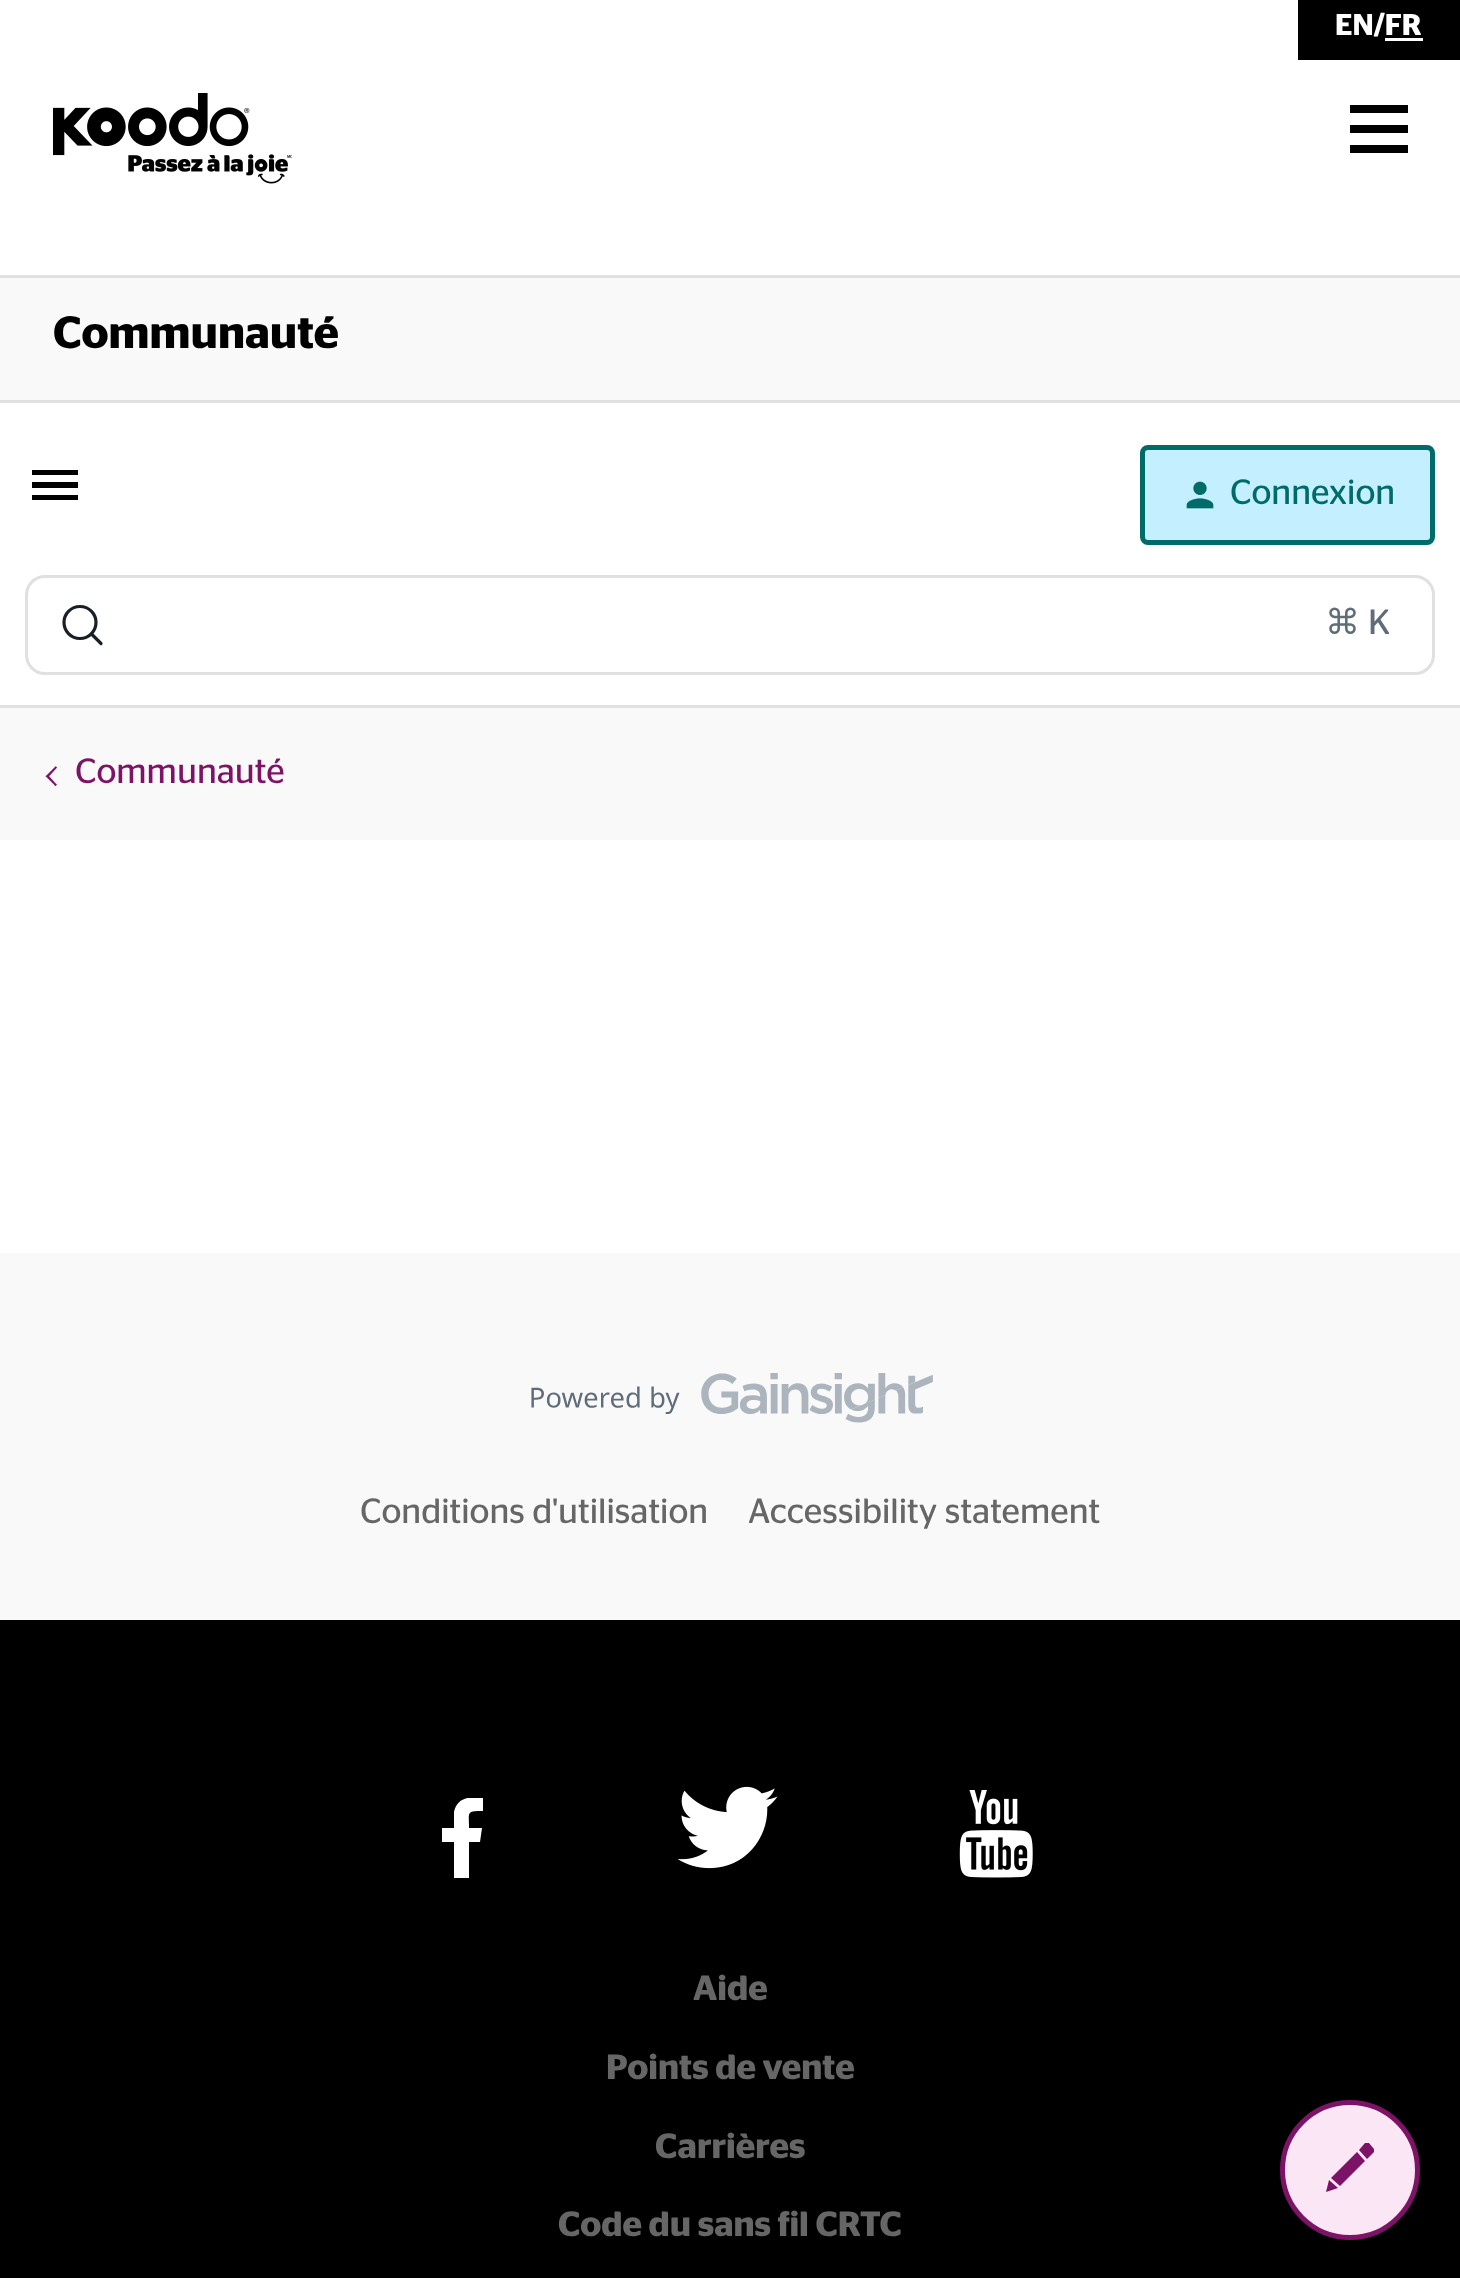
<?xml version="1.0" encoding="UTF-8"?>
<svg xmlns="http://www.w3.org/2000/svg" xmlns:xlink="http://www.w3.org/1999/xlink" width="1460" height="2278">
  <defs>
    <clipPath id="clip1"><rect x="423" y="1798" width="80" height="80" /></clipPath>
  </defs>
  <rect width="100%" height="100%" fill="#f9f9f9" />
  <rect width="1460" height="275" fill="#ffffff" />
  <rect x="1298" width="162" height="60" fill="#000000" />
  <rect x="1385" y="38" width="38" height="3" fill="#ffffff" />
  <image x="53" y="93" width="240" height="91" xlink:href="image1.png" />
  <rect x="1350" y="105" width="58" height="8" fill="#000000" />
  <rect x="1350" y="125" width="58" height="8" fill="#000000" />
  <rect x="1350" y="145" width="58" height="8" fill="#000000" />
  <rect y="275" width="1460" height="3" fill="#e0e0e0" />
  <rect y="403" width="1460" height="302" fill="#ffffff" />
  <rect y="400" width="1460" height="3" fill="#e0e0e0" />
  <rect y="705" width="1460" height="3" fill="#e0e0e0" />
  <path d="M 32 500 h 46 v -5 h -46 z m 0 -12 h 46 v -6 h -46 z m 0 -18 v 5 h 46 v -5 z" fill="#000000" />
  <rect x="1142.5" y="447.5" width="290" height="95" rx="5.5" fill="#c3efff" stroke="#016b6a" stroke-width="5" />
  <image x="1186" y="481" width="28" height="28" xlink:href="image2.png" />
  <rect x="26.5" y="576.5" width="1407" height="97" rx="18.5" fill="none" stroke="#e0e0e0" stroke-width="3" />
  <circle cx="80" cy="622.5" r="16" fill="none" stroke="#181f26" stroke-width="3.2" />
  <path d="M 91.5 634 l 9.5 9.5" fill="none" stroke="#181f26" stroke-width="3.2" stroke-linecap="round" />
  <image x="45" y="766" width="12" height="20" xlink:href="image3.png" />
  <rect y="840" width="1460" height="413" fill="#ffffff" />
  <image x="531" y="1373" width="402" height="50" xlink:href="image4.png" />
  <rect y="1620" width="1460" height="658" fill="#000000" />
  <g clip-path="url(#clip1)">
    <path d="M 454 1878 v -36 h -12 v -14 h 12 v -16 c 3 -15 17 -16 29 -14 v 13 c -17 0 -14 1 -14 17 h 13 l -2 14 h -11 v 36" fill="#ffffff" />
  </g>
  <image x="678" y="1786" width="100" height="83" xlink:href="image5.png" />
  <image x="959" y="1790" width="74" height="88" xlink:href="image6.png" />
  <circle cx="1350" cy="2170" r="67.5" fill="#fae6f4" stroke="#7c1366" stroke-width="5" />
  <path d="M 1331 2178 l 26 -26 l 8 9 l -25 25 z m 34 -35 h 4 l 5 6 v 3 l -7 7 l -8 -9 z m -39 49 l 3 -12 l 9 8 z" fill="#7c1366" />
  <text x="1335" y="35" style="font-family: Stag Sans; font-size: 30px; font-weight: 600; fill: #ffffff">EN/FR</text>
  <text x="53" y="348" style="font-family: Stag Sans; font-size: 45px; font-weight: 600; fill: #000000">Communauté</text>
  <text x="1230" y="504" style="font-family: Stag Sans; font-size: 35px; fill: #016b6a">Connexion</text>
  <text x="1325" y="634" style="font-family: DejaVu Sans; font-size: 35px; fill: #5f6c7a">⌘</text>
  <text x="1368" y="634" style="font-family: Stag Sans; font-size: 35px; fill: #5f6c7a">K</text>
  <text x="75" y="783" style="font-family: Stag Sans; font-size: 35px; fill: #7c1366">Communauté</text>
  <text x="360" y="1523" style="font-family: Stag Sans; font-size: 35px; fill: #666666">Conditions d'utilisation</text>
  <text x="748" y="1523" style="font-family: Stag Sans; font-size: 35px; fill: #666666">Accessibility statement</text>
  <text x="693" y="2000" style="font-family: Stag Sans; font-size: 35px; font-weight: 600; fill: #666666">Aide</text>
  <text x="606" y="2079" style="font-family: Stag Sans; font-size: 35px; font-weight: 600; fill: #666666">Points de vente</text>
  <text x="655" y="2158" style="font-family: Stag Sans; font-size: 35px; font-weight: 600; fill: #666666">Carrières</text>
  <text x="558" y="2236" style="font-family: Stag Sans; font-size: 35px; font-weight: 600; fill: #666666">Code du sans fil CRTC</text>
</svg>
